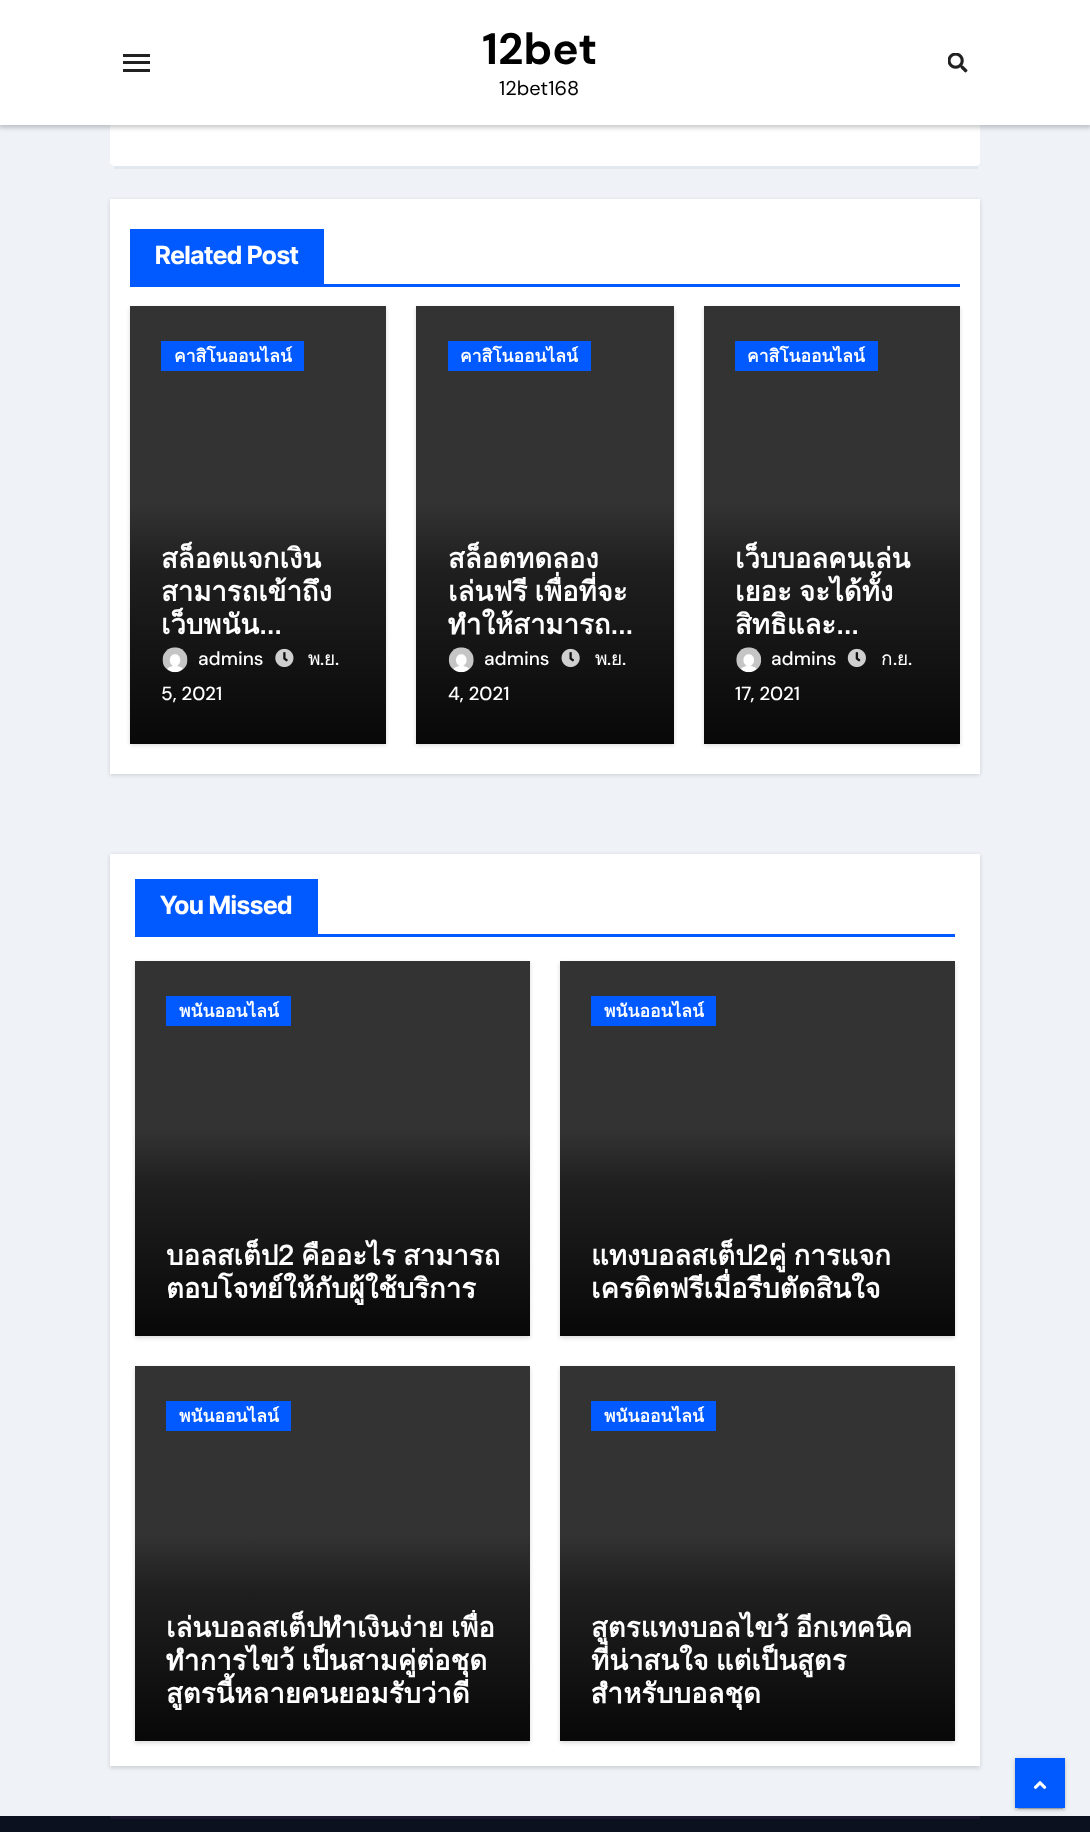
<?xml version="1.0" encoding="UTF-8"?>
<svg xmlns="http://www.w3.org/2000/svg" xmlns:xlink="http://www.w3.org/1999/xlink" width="1090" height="1832">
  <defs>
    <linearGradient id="g1" gradientUnits="userSpaceOnUse" x1="258" y1="306" x2="258" y2="744"><stop offset="0" stop-color="#333333" /><stop offset="0.45" stop-color="#333333" /><stop offset="0.6" stop-color="#1f1f1f" /><stop offset="1" stop-color="#080808" /></linearGradient>
    <linearGradient id="g2" gradientUnits="userSpaceOnUse" x1="545" y1="306" x2="545" y2="744"><stop offset="0" stop-color="#333333" /><stop offset="0.45" stop-color="#333333" /><stop offset="0.6" stop-color="#1f1f1f" /><stop offset="1" stop-color="#080808" /></linearGradient>
    <linearGradient id="g3" gradientUnits="userSpaceOnUse" x1="832" y1="306" x2="832" y2="744"><stop offset="0" stop-color="#333333" /><stop offset="0.45" stop-color="#333333" /><stop offset="0.6" stop-color="#1f1f1f" /><stop offset="1" stop-color="#080808" /></linearGradient>
    <linearGradient id="g4" gradientUnits="userSpaceOnUse" x1="333" y1="961" x2="333" y2="1336"><stop offset="0" stop-color="#333333" /><stop offset="0.45" stop-color="#333333" /><stop offset="0.6" stop-color="#1f1f1f" /><stop offset="1" stop-color="#080808" /></linearGradient>
    <linearGradient id="g5" gradientUnits="userSpaceOnUse" x1="758" y1="961" x2="758" y2="1336"><stop offset="0" stop-color="#333333" /><stop offset="0.45" stop-color="#333333" /><stop offset="0.6" stop-color="#1f1f1f" /><stop offset="1" stop-color="#080808" /></linearGradient>
    <linearGradient id="g6" gradientUnits="userSpaceOnUse" x1="333" y1="1366" x2="333" y2="1741"><stop offset="0" stop-color="#333333" /><stop offset="0.45" stop-color="#333333" /><stop offset="0.6" stop-color="#1f1f1f" /><stop offset="1" stop-color="#080808" /></linearGradient>
    <linearGradient id="g7" gradientUnits="userSpaceOnUse" x1="758" y1="1366" x2="758" y2="1741"><stop offset="0" stop-color="#333333" /><stop offset="0.45" stop-color="#333333" /><stop offset="0.6" stop-color="#1f1f1f" /><stop offset="1" stop-color="#080808" /></linearGradient>
    <clipPath id="clip1"><rect x="161" y="541" width="194" height="100" /></clipPath>
    <clipPath id="clip2"><rect x="448" y="541" width="195" height="100" /></clipPath>
    <clipPath id="clip3"><rect x="735" y="541" width="194" height="100" /></clipPath>
    <clipPath id="clip4"><rect x="166" y="1239" width="333" height="66" /></clipPath>
    <clipPath id="clip5"><rect x="166" y="1610" width="333" height="100" /></clipPath>
    <clipPath id="clip6"><rect x="591" y="1610" width="333" height="100" /></clipPath>
  </defs>
  <rect width="100%" height="100%" fill="#eff2f7" />
  <path d="M 116 -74 h 858 c 3 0 6 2 6 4 v 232 c 0 3 -3 4 -6 4 h -858 c -3 0 -6 -1 -6 -4 v -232 c 0 -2 3 -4 6 -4 z" fill="#ffffff" />
  <rect x="-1" width="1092" height="128" fill="#000000" fill-opacity="0.2" filter="blur(2px)" />
  <rect width="1090" height="125" fill="#ffffff" />
  <rect x="123" y="54" width="27" height="3" fill="#212121" />
  <rect x="123" y="61" width="27" height="3" fill="#212121" />
  <rect x="123" y="69" width="27" height="3" fill="#212121" />
  <image x="948" y="53" width="20" height="20" xlink:href="image1.png" />
  <rect x="114" y="166" width="864" height="3" fill="#e2e8f0" />
  <rect x="110" y="200" width="870" height="575" fill="#000000" fill-opacity="0.15" filter="blur(2px)" />
  <rect x="110" y="199" width="870" height="575" fill="#ffffff" />
  <rect x="130" y="284" width="830" height="3" fill="#005aff" />
  <rect x="130" y="229" width="194" height="55" fill="#005aff" />
  <rect x="130" y="308" width="256" height="437" fill="#000000" fill-opacity="0.15" filter="blur(2px)" />
  <rect x="130" y="306" width="256" height="438" fill="url(#g1)" />
  <rect x="161" y="341" width="143" height="30" fill="#005aff" />
  <image x="162" y="647" width="26" height="26" xlink:href="image2.png" />
  <image x="275" y="648" width="19" height="19" xlink:href="image3.png" />
  <rect x="416" y="308" width="258" height="437" fill="#000000" fill-opacity="0.15" filter="blur(2px)" />
  <rect x="416" y="306" width="258" height="438" fill="url(#g2)" />
  <rect x="448" y="341" width="143" height="30" fill="#005aff" />
  <image x="448" y="647" width="26" height="26" xlink:href="image4.png" />
  <image x="561" y="648" width="19" height="19" xlink:href="image5.png" />
  <rect x="704" y="308" width="256" height="437" fill="#000000" fill-opacity="0.15" filter="blur(2px)" />
  <rect x="704" y="306" width="256" height="438" fill="url(#g3)" />
  <rect x="735" y="341" width="143" height="30" fill="#005aff" />
  <image x="736" y="647" width="26" height="26" xlink:href="image6.png" />
  <image x="847" y="648" width="19" height="19" xlink:href="image7.png" />
  <rect x="110" y="855" width="870" height="913" fill="#000000" fill-opacity="0.15" filter="blur(2px)" />
  <rect x="110" y="854" width="870" height="912" fill="#ffffff" />
  <rect x="135" y="934" width="820" height="3" fill="#005aff" />
  <rect x="135" y="879" width="183" height="55" fill="#005aff" />
  <rect x="135" y="963" width="395" height="375" fill="#000000" fill-opacity="0.15" filter="blur(2px)" />
  <rect x="135" y="961" width="395" height="375" fill="url(#g4)" />
  <rect x="166" y="996" width="125" height="30" fill="#005aff" />
  <rect x="560" y="963" width="395" height="375" fill="#000000" fill-opacity="0.15" filter="blur(2px)" />
  <rect x="560" y="961" width="395" height="375" fill="url(#g5)" />
  <rect x="591" y="996" width="125" height="30" fill="#005aff" />
  <rect x="135" y="1368" width="395" height="375" fill="#000000" fill-opacity="0.15" filter="blur(2px)" />
  <rect x="135" y="1366" width="395" height="375" fill="url(#g6)" />
  <rect x="166" y="1401" width="125" height="30" fill="#005aff" />
  <rect x="560" y="1368" width="395" height="375" fill="#000000" fill-opacity="0.15" filter="blur(2px)" />
  <rect x="560" y="1366" width="395" height="375" fill="url(#g7)" />
  <rect x="591" y="1401" width="125" height="30" fill="#005aff" />
  <rect y="1816" width="1090" height="16" fill="#0c1120" />
  <rect x="110" y="1816" width="870" height="3" fill="#1a182e" />
  <rect x="1015" y="1759" width="50" height="50" fill="#000000" fill-opacity="0.12" filter="blur(3px)" />
  <rect x="1018" y="1764" width="45" height="45" fill="#000000" fill-opacity="0.2" filter="blur(0.5px)" />
  <rect x="1015" y="1760" width="50" height="50" fill="#000000" fill-opacity="0.14" filter="blur(1px)" />
  <rect x="1015" y="1758" width="50" height="50" fill="#005aff" />
  <image x="1033" y="1781" width="14" height="8" xlink:href="image8.png" />
  <text x="482" y="64" style="font-family: DM Sans; font-size: 44px; font-weight: bold; fill: #000000">12bet</text>
  <text x="499" y="95" style="font-family: DM Sans; font-size: 20px; fill: #000000">12bet168</text>
  <text x="155" y="264" style="font-family: Inter Tight; font-size: 25px; font-weight: bold; fill: #ffffff">Related Post</text>
  <text x="174" y="362" style="font-family: Loma; font-size: 17.5px; font-weight: bold; fill: #ffffff">คาสิโนออนไลน์</text>
  <text x="161" y="568" style="font-family: Loma; font-size: 27.5px; font-weight: bold; fill: #ffffff">สล็อตแจกเงิน</text>
  <text x="161" y="601" style="font-family: Loma; font-size: 27.5px; font-weight: bold; fill: #ffffff">สามารถเข้าถึง</text>
  <g clip-path="url(#clip1)">
    <text x="161" y="634" style="font-family: Loma; font-size: 27.5px; font-weight: bold; fill: #ffffff">เว็บพนัน…</text>
  </g>
  <text x="198" y="665" style="font-family: DM Sans; font-size: 19px; font-weight: 500; fill: #ffffff">admins</text>
  <text x="308" y="665" style="font-family: Loma; font-size: 19px; fill: #ffffff">พ</text>
  <text x="320" y="665" style="font-family: DM Sans; font-size: 19px; font-weight: 500; fill: #ffffff">.</text>
  <text x="324" y="665" style="font-family: Loma; font-size: 19px; fill: #ffffff">ย</text>
  <text x="335" y="665" style="font-family: DM Sans; font-size: 19px; font-weight: 500; fill: #ffffff">.</text>
  <text x="161" y="700" style="font-family: DM Sans; font-size: 19px; font-weight: 500; fill: #ffffff">5, 2021</text>
  <text x="460" y="362" style="font-family: Loma; font-size: 17.5px; font-weight: bold; fill: #ffffff">คาสิโนออนไลน์</text>
  <text x="448" y="568" style="font-family: Loma; font-size: 27.5px; font-weight: bold; fill: #ffffff">สล็อตทดลอง</text>
  <text x="448" y="601" word-spacing="-2" style="font-family: Loma; font-size: 27.5px; font-weight: bold; fill: #ffffff">เล่นฟรี เพื่อที่จะ</text>
  <g clip-path="url(#clip2)">
    <text x="448" y="634" style="font-family: Loma; font-size: 27.5px; font-weight: bold; fill: #ffffff">ทำให้สามารถ…</text>
  </g>
  <text x="484" y="665" style="font-family: DM Sans; font-size: 19px; font-weight: 500; fill: #ffffff">admins</text>
  <text x="595" y="665" style="font-family: Loma; font-size: 19px; fill: #ffffff">พ</text>
  <text x="607" y="665" style="font-family: DM Sans; font-size: 19px; font-weight: 500; fill: #ffffff">.</text>
  <text x="611" y="665" style="font-family: Loma; font-size: 19px; fill: #ffffff">ย</text>
  <text x="622" y="665" style="font-family: DM Sans; font-size: 19px; font-weight: 500; fill: #ffffff">.</text>
  <text x="448" y="700" style="font-family: DM Sans; font-size: 19px; font-weight: 500; fill: #ffffff">4, 2021</text>
  <text x="747" y="362" style="font-family: Loma; font-size: 17.5px; font-weight: bold; fill: #ffffff">คาสิโนออนไลน์</text>
  <g clip-path="url(#clip3)">
    <text x="735" y="568" style="font-family: Loma; font-size: 27.5px; font-weight: bold; fill: #ffffff">เว็บบอลคนเล่น</text>
  </g>
  <text x="735" y="601" word-spacing="-2" style="font-family: Loma; font-size: 27.5px; font-weight: bold; fill: #ffffff">เยอะ จะได้ทั้ง</text>
  <g clip-path="url(#clip3)">
    <text x="735" y="634" style="font-family: Loma; font-size: 27.5px; font-weight: bold; fill: #ffffff">สิทธิและ…</text>
  </g>
  <text x="771" y="665" style="font-family: DM Sans; font-size: 19px; font-weight: 500; fill: #ffffff">admins</text>
  <text x="881" y="665" style="font-family: Loma; font-size: 19px; fill: #ffffff">ก</text>
  <text x="893" y="665" style="font-family: DM Sans; font-size: 19px; font-weight: 500; fill: #ffffff">.</text>
  <text x="897" y="665" style="font-family: Loma; font-size: 19px; fill: #ffffff">ย</text>
  <text x="908" y="665" style="font-family: DM Sans; font-size: 19px; font-weight: 500; fill: #ffffff">.</text>
  <text x="735" y="700" style="font-family: DM Sans; font-size: 19px; font-weight: 500; fill: #ffffff">17, 2021</text>
  <text x="160" y="914" style="font-family: Inter Tight; font-size: 25px; font-weight: bold; fill: #ffffff">You Missed</text>
  <text x="179" y="1017" style="font-family: Loma; font-size: 17.5px; font-weight: bold; fill: #ffffff">พนันออนไลน์</text>
  <text x="166" y="1265" word-spacing="-2" style="font-family: Loma; font-size: 27.5px; font-weight: bold; fill: #ffffff">บอลสเต็ป2 คืออะไร สามารถ</text>
  <g clip-path="url(#clip4)">
    <text x="166" y="1298" style="font-family: Loma; font-size: 27.5px; font-weight: bold; fill: #ffffff">ตอบโจทย์ให้กับผู้ใช้บริการ</text>
  </g>
  <text x="604" y="1017" style="font-family: Loma; font-size: 17.5px; font-weight: bold; fill: #ffffff">พนันออนไลน์</text>
  <text x="591" y="1265" word-spacing="-2" style="font-family: Loma; font-size: 27.5px; font-weight: bold; fill: #ffffff">แทงบอลสเต็ป2คู่ การแจก</text>
  <text x="591" y="1298" style="font-family: Loma; font-size: 27.5px; font-weight: bold; fill: #ffffff">เครดิตฟรีเมื่อรีบตัดสินใจ</text>
  <text x="179" y="1422" style="font-family: Loma; font-size: 17.5px; font-weight: bold; fill: #ffffff">พนันออนไลน์</text>
  <g clip-path="url(#clip5)">
    <text x="166" y="1637" word-spacing="-2" style="font-family: Loma; font-size: 27.5px; font-weight: bold; fill: #ffffff">เล่นบอลสเต็ปทำเงินง่าย เพื่อ</text>
    <text x="166" y="1670" word-spacing="-2" style="font-family: Loma; font-size: 27.5px; font-weight: bold; fill: #ffffff">ทำการไขว้ เป็นสามคู่ต่อชุด</text>
    <text x="166" y="1703" style="font-family: Loma; font-size: 27.5px; font-weight: bold; fill: #ffffff">สูตรนี้หลายคนยอมรับว่าดี</text>
  </g>
  <text x="604" y="1422" style="font-family: Loma; font-size: 17.5px; font-weight: bold; fill: #ffffff">พนันออนไลน์</text>
  <g clip-path="url(#clip6)">
    <text x="591" y="1637" word-spacing="-2" style="font-family: Loma; font-size: 27.5px; font-weight: bold; fill: #ffffff">สูตรแทงบอลไขว้ อีกเทคนิค</text>
    <text x="591" y="1670" word-spacing="-2" style="font-family: Loma; font-size: 27.5px; font-weight: bold; fill: #ffffff">ที่น่าสนใจ แต่เป็นสูตร</text>
    <text x="591" y="1703" style="font-family: Loma; font-size: 27.5px; font-weight: bold; fill: #ffffff">สำหรับบอลชุด</text>
  </g>
</svg>
